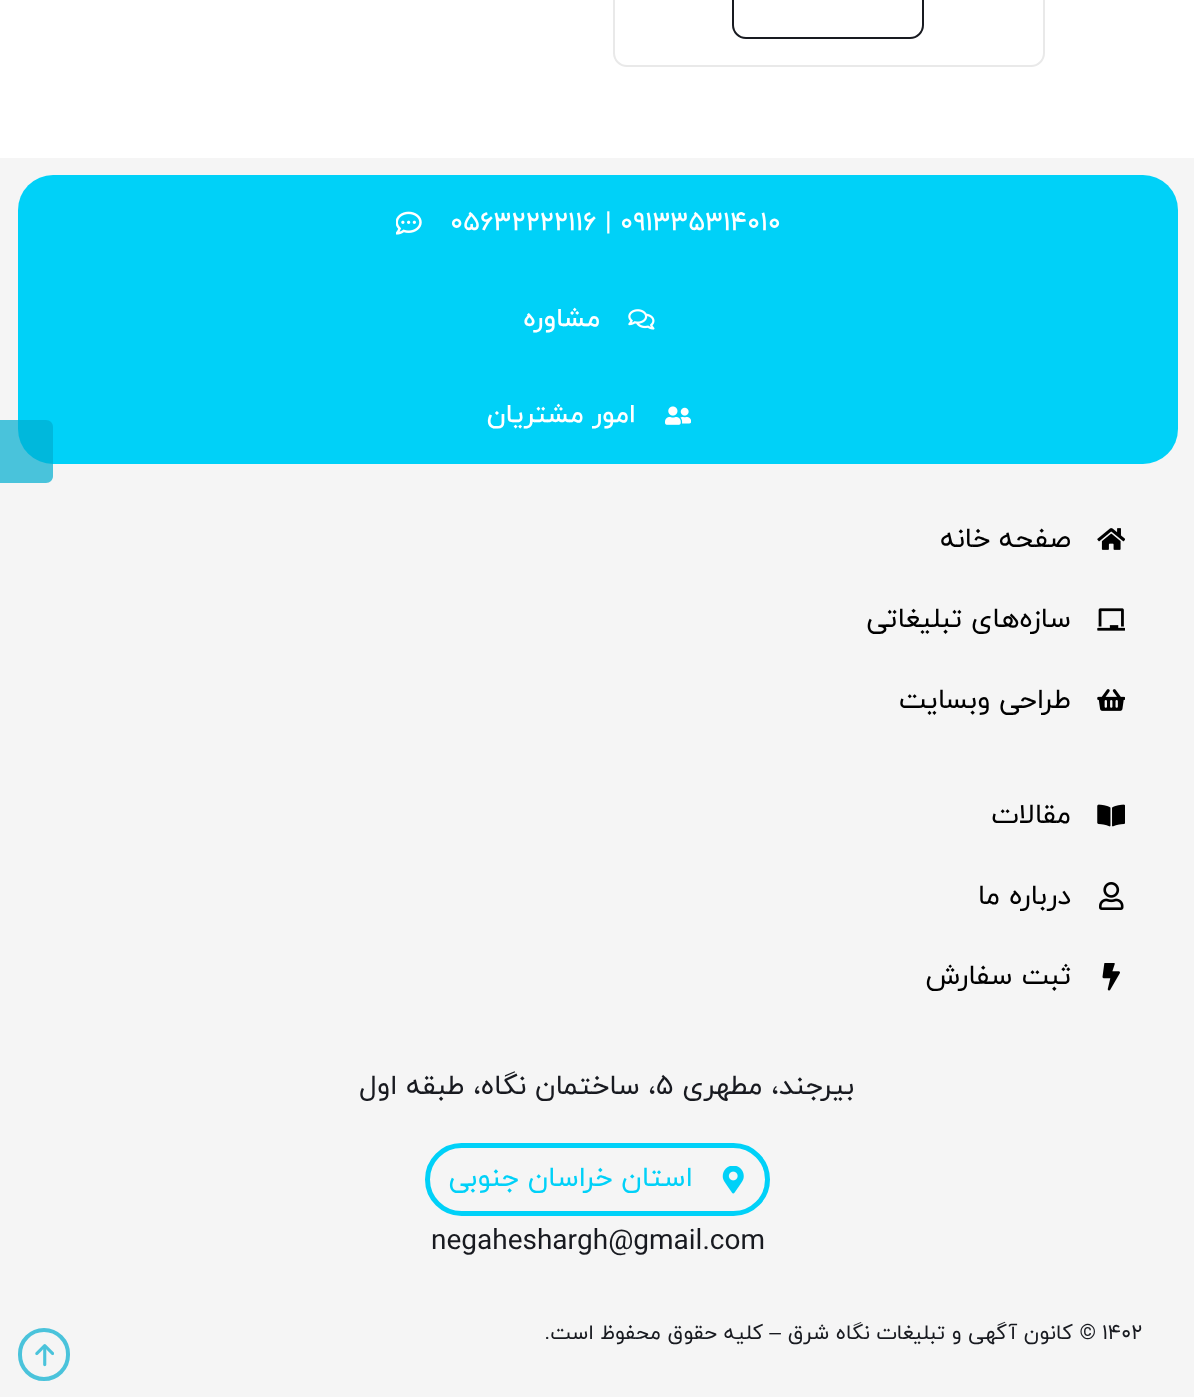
<?xml version="1.0" encoding="UTF-8"?>
<svg xmlns="http://www.w3.org/2000/svg" xmlns:xlink="http://www.w3.org/1999/xlink" width="1194" height="1397">
  <rect width="100%" height="100%" fill="#ffffff" />
  <rect x="614" y="-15" width="430" height="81" rx="13" fill="none" stroke="#e9e9e9" stroke-width="2" />
  <rect x="733" y="-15" width="190" height="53" rx="13" fill="none" stroke="#181a20" stroke-width="2" />
  <rect y="158" width="1194" height="1239" fill="#f5f5f5" />
  <rect x="18" y="175" width="1160" height="289" rx="35" fill="#00d1f8" />
  <path d="M 0 420 h 46 c 4 0 7 3 7 7 v 49 c 0 4 -3 7 -7 7 h -46 z" fill="#00aed0" fill-opacity="0.7" />
  <image x="396" y="211" width="26" height="24" xlink:href="image1.png" />
  <image x="628" y="309" width="27" height="21" xlink:href="image2.png" />
  <image x="665" y="406" width="26" height="19" xlink:href="image3.png" />
  <image x="1097" y="528" width="28" height="22" xlink:href="image4.png" />
  <image x="1097" y="608" width="28" height="23" xlink:href="image5.png" />
  <image x="1097" y="689" width="28" height="22" xlink:href="image6.png" />
  <image x="1097" y="804" width="28" height="23" xlink:href="image7.png" />
  <image x="1099" y="882" width="25" height="28" xlink:href="image8.png" />
  <image x="1102" y="963" width="18" height="28" xlink:href="image9.png" />
  <rect x="427.5" y="1145.5" width="340" height="68" rx="34" fill="none" stroke="#00d1f8" stroke-width="5" />
  <image x="722" y="1166" width="22" height="28" xlink:href="image10.png" />
  <rect x="20" y="1330" width="48" height="49" rx="24" fill="none" stroke="#4ac3db" stroke-width="4" />
  <image x="35" y="1344" width="19" height="23" xlink:href="image11.png" />
  <text x="450" y="230" style="font-family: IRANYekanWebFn; font-size: 26.25px; font-weight: 500; fill: #ffffff">05632222116 | 091335314010</text>
  <text x="600" y="326" style="font-family: IRANYekanWebFn; font-size: 26.25px; font-weight: 500; direction: rtl; fill: #ffffff">مشاوره</text>
  <text x="636" y="422" style="font-family: IRANYekanWebFn; font-size: 26.25px; font-weight: 500; direction: rtl; fill: #ffffff">امور مشتریان</text>
  <text x="1071" y="547" style="font-family: IRANYekanWebFn; font-size: 28px; direction: rtl; fill: #000000">صفحه خانه</text>
  <text x="1071" y="627" style="font-family: IRANYekanWebFn; font-size: 28px; direction: rtl; fill: #000000">سازه‌های تبلیغاتی</text>
  <text x="1071" y="708" style="font-family: IRANYekanWebFn; font-size: 28px; direction: rtl; fill: #000000">طراحی وبسایت</text>
  <text x="1071" y="823" style="font-family: IRANYekanWebFn; font-size: 28px; direction: rtl; fill: #000000">مقالات</text>
  <text x="1071" y="904" style="font-family: IRANYekanWebFn; font-size: 28px; direction: rtl; fill: #000000">درباره ما</text>
  <text x="1071" y="984" style="font-family: IRANYekanWebFn; font-size: 28px; direction: rtl; fill: #000000">ثبت سفارش</text>
  <text x="854" y="1094" style="font-family: IRANYekanWebFn; font-size: 28px; direction: rtl; fill: #181a20">بیرجند، مطهری</text>
  <text x="656" y="1094" style="font-family: IRANYekanWebFn; font-size: 28px; fill: #181a20">۵</text>
  <text x="656" y="1094" style="font-family: IRANYekanWebFn; font-size: 28px; direction: rtl; fill: #181a20">، ساختمان نگاه، طبقه اول</text>
  <text x="693" y="1186" style="font-family: IRANYekanWebFn; font-size: 28px; direction: rtl; fill: #00d1f8">استان خراسان جنوبی</text>
  <text x="431" y="1249" style="font-family: IRANYekanWebFn; font-size: 28px; fill: #181a20">negaheshargh@gmail.com</text>
  <text x="1102" y="1339" style="font-family: IRANYekanWebFn; font-size: 21px; fill: #181a20">۱۴۰۲</text>
  <text x="1096" y="1339" style="font-family: IRANYekanWebFn; font-size: 21px; direction: rtl; fill: #181a20">© کانون آگهی و تبلیغات نگاه شرق</text>
  <text x="781" y="1339" style="font-family: Liberation Sans; font-size: 21px; direction: rtl; fill: #181a20">–</text>
  <text x="763" y="1339" style="font-family: IRANYekanWebFn; font-size: 21px; direction: rtl; fill: #181a20">کلیه حقوق محفوظ است.</text>
</svg>
